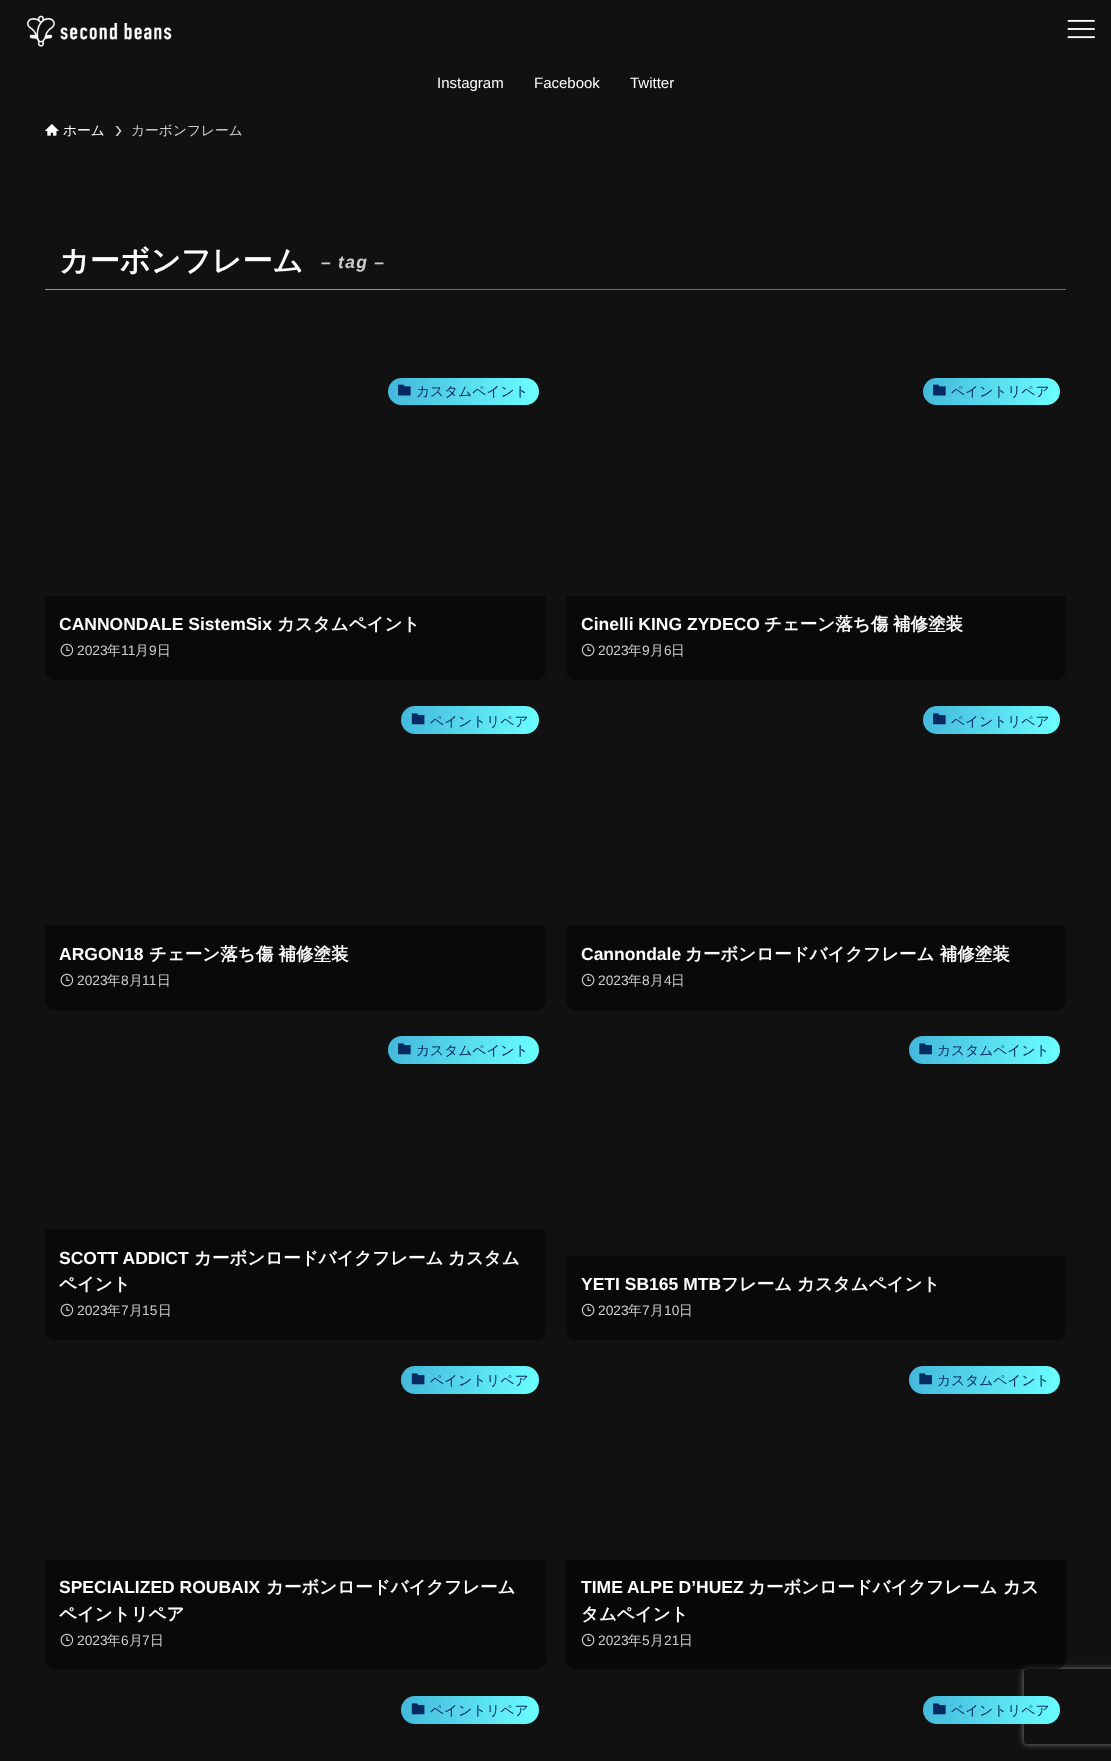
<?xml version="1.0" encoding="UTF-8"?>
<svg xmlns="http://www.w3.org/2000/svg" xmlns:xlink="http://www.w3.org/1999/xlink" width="1111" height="1761">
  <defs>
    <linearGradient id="g1" gradientUnits="userSpaceOnUse" x1="387" y1="378" x2="539" y2="405"><stop offset="0" stop-color="#43b7db" /><stop offset="1" stop-color="#6bffff" /></linearGradient>
    <linearGradient id="g2" gradientUnits="userSpaceOnUse" x1="922" y1="379" x2="1060" y2="403"><stop offset="0" stop-color="#43b7db" /><stop offset="1" stop-color="#6bffff" /></linearGradient>
    <linearGradient id="g3" gradientUnits="userSpaceOnUse" x1="401" y1="708" x2="539" y2="732"><stop offset="0" stop-color="#43b7db" /><stop offset="1" stop-color="#6bffff" /></linearGradient>
    <linearGradient id="g4" gradientUnits="userSpaceOnUse" x1="922" y1="708" x2="1060" y2="732"><stop offset="0" stop-color="#43b7db" /><stop offset="1" stop-color="#6bffff" /></linearGradient>
    <linearGradient id="g5" gradientUnits="userSpaceOnUse" x1="387" y1="1037" x2="539" y2="1063"><stop offset="0" stop-color="#43b7db" /><stop offset="1" stop-color="#6bffff" /></linearGradient>
    <linearGradient id="g6" gradientUnits="userSpaceOnUse" x1="909" y1="1037" x2="1060" y2="1063"><stop offset="0" stop-color="#43b7db" /><stop offset="1" stop-color="#6bffff" /></linearGradient>
    <linearGradient id="g7" gradientUnits="userSpaceOnUse" x1="401" y1="1368" x2="539" y2="1392"><stop offset="0" stop-color="#43b7db" /><stop offset="1" stop-color="#6bffff" /></linearGradient>
    <linearGradient id="g8" gradientUnits="userSpaceOnUse" x1="909" y1="1367" x2="1060" y2="1393"><stop offset="0" stop-color="#43b7db" /><stop offset="1" stop-color="#6bffff" /></linearGradient>
    <clipPath id="clip1"><path d="M 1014 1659 h 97 v 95 h -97 z m 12.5 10 h 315 c 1.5 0 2.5 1 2.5 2.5 v 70 c 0 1.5 -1 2.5 -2.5 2.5 h -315 c -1.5 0 -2.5 -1 -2.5 -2.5 v -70 c 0 -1.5 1 -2.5 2.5 -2.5 z" clip-rule="evenodd" /></clipPath>
    <linearGradient id="g9" gradientUnits="userSpaceOnUse" x1="401" y1="1698" x2="539" y2="1722"><stop offset="0" stop-color="#43b7db" /><stop offset="1" stop-color="#6bffff" /></linearGradient>
    <linearGradient id="g10" gradientUnits="userSpaceOnUse" x1="922" y1="1698" x2="1060" y2="1722"><stop offset="0" stop-color="#43b7db" /><stop offset="1" stop-color="#6bffff" /></linearGradient>
  </defs>
  <rect width="100%" height="100%" fill="#111111" />
  <image x="26" y="15" width="146" height="32" xlink:href="image1.png" />
  <image x="1067" y="19" width="28" height="20" xlink:href="image2.png" />
  <image x="45" y="124" width="14" height="12" xlink:href="image3.png" />
  <path d="M 117.5 126 h -2 l 4 5 l -4 5 h 2 l 4 -5 z" fill="#cecece" />
  <rect x="400" y="289" width="666" height="1" fill="#6c6c6c" />
  <rect x="45" y="289" width="355" height="1" fill="#43b7db" />
  <rect x="388" y="378" width="151" height="27" rx="13.5" fill="url(#g1)" />
  <image x="398" y="384" width="13" height="12" xlink:href="image4.png" />
  <path d="M 45 596 h 501 v 74 c 0 5.5 -4.5 10 -10 10 h -481 c -5.5 0 -10 -4.5 -10 -10 z" fill="#090909" />
  <image x="60" y="643" width="14" height="14" xlink:href="image5.png" />
  <rect x="923" y="378" width="137" height="27" rx="13.5" fill="url(#g2)" />
  <image x="933" y="384" width="13" height="12" xlink:href="image6.png" />
  <path d="M 566 596 h 500 v 74 c 0 5.5 -4.5 10 -10 10 h -480 c -5.5 0 -10 -4.5 -10 -10 z" fill="#090909" />
  <image x="581" y="643" width="14" height="14" xlink:href="image7.png" />
  <rect x="401" y="706" width="138" height="28" rx="14" fill="url(#g3)" />
  <image x="411" y="713" width="14" height="12" xlink:href="image8.png" />
  <path d="M 45 926 h 501 v 74 c 0 5.5 -4.5 10 -10 10 h -481 c -5.5 0 -10 -4.5 -10 -10 z" fill="#090909" />
  <image x="60" y="973" width="14" height="14" xlink:href="image5.png" />
  <rect x="923" y="706" width="137" height="28" rx="14" fill="url(#g4)" />
  <image x="933" y="713" width="13" height="12" xlink:href="image9.png" />
  <path d="M 566 926 h 500 v 74 c 0 5.5 -4.5 10 -10 10 h -480 c -5.5 0 -10 -4.5 -10 -10 z" fill="#090909" />
  <image x="581" y="973" width="14" height="14" xlink:href="image7.png" />
  <rect x="388" y="1036" width="151" height="28" rx="14" fill="url(#g5)" />
  <image x="398" y="1043" width="13" height="12" xlink:href="image10.png" />
  <path d="M 45 1230 h 501 v 100 c 0 5.5 -4.5 10 -10 10 h -481 c -5.5 0 -10 -4.5 -10 -10 z" fill="#090909" />
  <image x="60" y="1303" width="14" height="14" xlink:href="image5.png" />
  <rect x="909" y="1036" width="151" height="28" rx="14" fill="url(#g6)" />
  <image x="919" y="1043" width="13" height="12" xlink:href="image11.png" />
  <path d="M 566 1256 h 500 v 74 c 0 5.5 -4.5 10 -10 10 h -480 c -5.5 0 -10 -4.5 -10 -10 z" fill="#090909" />
  <image x="581" y="1303" width="14" height="14" xlink:href="image7.png" />
  <rect x="401" y="1366" width="138" height="28" rx="14" fill="url(#g7)" />
  <image x="411" y="1373" width="14" height="12" xlink:href="image8.png" />
  <path d="M 45 1560 h 501 v 99 c 0 5.5 -4.5 10 -10 10 h -481 c -5.5 0 -10 -4.5 -10 -10 z" fill="#090909" />
  <image x="60" y="1633" width="14" height="14" xlink:href="image5.png" />
  <rect x="909" y="1366" width="151" height="28" rx="14" fill="url(#g8)" />
  <image x="919" y="1373" width="13" height="12" xlink:href="image11.png" />
  <g clip-path="url(#clip1)">
    <rect x="1024" y="1669" width="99" height="75" rx="2.5" fill="#808080" filter="blur(3px)" />
  </g>
  <path d="M 566 1560 h 500 v 99 c 0 5.5 -4.5 10 -10 10 h -480 c -5.5 0 -10 -4.5 -10 -10 z" fill="#000000" fill-opacity="0.5" />
  <image x="581" y="1633" width="14" height="14" xlink:href="image12.png" />
  <rect x="401" y="1696" width="138" height="28" rx="14" fill="url(#g9)" />
  <image x="411" y="1703" width="14" height="12" xlink:href="image8.png" />
  <rect x="923" y="1696" width="137" height="28" rx="14" fill="url(#g10)" />
  <image x="933" y="1703" width="13" height="12" xlink:href="image9.png" />
  <text x="437" y="88" style="font-family: Liberation Sans; font-size: 15px; fill: #fdfdfd">Instagram</text>
  <text x="534" y="88" style="font-family: Liberation Sans; font-size: 15px; fill: #fdfdfd">Facebook</text>
  <text x="630" y="88" style="font-family: Liberation Sans; font-size: 15px; fill: #fdfdfd">Twitter</text>
  <text x="63" y="135" style="font-family: WenQuanYi Zen Hei; font-size: 13.75px; font-weight: 500; fill: #fdfdfd">ホーム</text>
  <text x="131" y="135" style="font-family: WenQuanYi Zen Hei; font-size: 13.75px; font-weight: 500; fill: #cecece">カーボンフレーム</text>
  <text x="59" y="271" style="font-family: WenQuanYi Zen Hei; font-size: 30px; font-weight: bold; fill: #fdfdfd">カーボンフレーム</text>
  <text x="321" y="268" style="font-family: Liberation Sans; font-size: 17.5px; font-weight: bold; font-style: italic; letter-spacing: 1.25px; fill: #cecece">– tag –</text>
  <text x="416" y="396" style="font-family: WenQuanYi Zen Hei; font-size: 13.75px; font-weight: 500; fill: #062a60">カスタムペイント</text>
  <text x="59" y="630" style="font-family: Liberation Sans; font-size: 17.5px; font-weight: bold; fill: #fdfdfd">CANNONDALE SistemSix</text>
  <text x="277" y="630" style="font-family: WenQuanYi Zen Hei; font-size: 17.5px; font-weight: bold; fill: #fdfdfd">カスタムペイント</text>
  <text x="77" y="655" style="font-family: Liberation Sans; font-size: 13.75px; fill: #cecece">2023</text>
  <text x="107" y="655" style="font-family: WenQuanYi Zen Hei; font-size: 13.75px; font-weight: 500; fill: #cecece">年</text>
  <text x="121" y="655" style="font-family: Liberation Sans; font-size: 13.75px; fill: #cecece">11</text>
  <text x="135" y="655" style="font-family: WenQuanYi Zen Hei; font-size: 13.75px; font-weight: 500; fill: #cecece">月</text>
  <text x="149" y="655" style="font-family: Liberation Sans; font-size: 13.75px; fill: #cecece">9</text>
  <text x="157" y="655" style="font-family: WenQuanYi Zen Hei; font-size: 13.75px; font-weight: 500; fill: #cecece">日</text>
  <text x="951" y="396" style="font-family: WenQuanYi Zen Hei; font-size: 13.75px; font-weight: 500; fill: #062a60">ペイントリペア</text>
  <text x="581" y="630" style="font-family: Liberation Sans; font-size: 17.5px; font-weight: bold; fill: #fdfdfd">Cinelli KING ZYDECO</text>
  <text x="764" y="630" style="font-family: WenQuanYi Zen Hei; font-size: 17.5px; font-weight: bold; fill: #fdfdfd">チェーン落ち傷</text>
  <text x="893" y="630" style="font-family: WenQuanYi Zen Hei; font-size: 17.5px; font-weight: bold; fill: #fdfdfd">補修塗装</text>
  <text x="598" y="655" style="font-family: Liberation Sans; font-size: 13.75px; fill: #cecece">2023</text>
  <text x="628" y="655" style="font-family: WenQuanYi Zen Hei; font-size: 13.75px; font-weight: 500; fill: #cecece">年</text>
  <text x="642" y="655" style="font-family: Liberation Sans; font-size: 13.75px; fill: #cecece">9</text>
  <text x="650" y="655" style="font-family: WenQuanYi Zen Hei; font-size: 13.75px; font-weight: 500; fill: #cecece">月</text>
  <text x="664" y="655" style="font-family: Liberation Sans; font-size: 13.75px; fill: #cecece">6</text>
  <text x="671" y="655" style="font-family: WenQuanYi Zen Hei; font-size: 13.75px; font-weight: 500; fill: #cecece">日</text>
  <text x="430" y="726" style="font-family: WenQuanYi Zen Hei; font-size: 13.75px; font-weight: 500; fill: #062a60">ペイントリペア</text>
  <text x="59" y="960" style="font-family: Liberation Sans; font-size: 17.5px; font-weight: bold; fill: #fdfdfd">ARGON18</text>
  <text x="149" y="960" style="font-family: WenQuanYi Zen Hei; font-size: 17.5px; font-weight: bold; fill: #fdfdfd">チェーン落ち傷 補修塗装</text>
  <text x="77" y="985" style="font-family: Liberation Sans; font-size: 13.75px; fill: #cecece">2023</text>
  <text x="107" y="985" style="font-family: WenQuanYi Zen Hei; font-size: 13.75px; font-weight: 500; fill: #cecece">年</text>
  <text x="121" y="985" style="font-family: Liberation Sans; font-size: 13.75px; fill: #cecece">8</text>
  <text x="129" y="985" style="font-family: WenQuanYi Zen Hei; font-size: 13.75px; font-weight: 500; fill: #cecece">月</text>
  <text x="142" y="985" style="font-family: Liberation Sans; font-size: 13.75px; fill: #cecece">11</text>
  <text x="157" y="985" style="font-family: WenQuanYi Zen Hei; font-size: 13.75px; font-weight: 500; fill: #cecece">日</text>
  <text x="951" y="726" style="font-family: WenQuanYi Zen Hei; font-size: 13.75px; font-weight: 500; fill: #062a60">ペイントリペア</text>
  <text x="581" y="960" style="font-family: Liberation Sans; font-size: 17.5px; font-weight: bold; fill: #fdfdfd">Cannondale</text>
  <text x="685" y="960" style="font-family: WenQuanYi Zen Hei; font-size: 17.5px; font-weight: bold; fill: #fdfdfd">カーボンロードバイクフレーム 補修塗装</text>
  <text x="598" y="985" style="font-family: Liberation Sans; font-size: 13.75px; fill: #cecece">2023</text>
  <text x="628" y="985" style="font-family: WenQuanYi Zen Hei; font-size: 13.75px; font-weight: 500; fill: #cecece">年</text>
  <text x="642" y="985" style="font-family: Liberation Sans; font-size: 13.75px; fill: #cecece">8</text>
  <text x="650" y="985" style="font-family: WenQuanYi Zen Hei; font-size: 13.75px; font-weight: 500; fill: #cecece">月</text>
  <text x="664" y="985" style="font-family: Liberation Sans; font-size: 13.75px; fill: #cecece">4</text>
  <text x="671" y="985" style="font-family: WenQuanYi Zen Hei; font-size: 13.75px; font-weight: 500; fill: #cecece">日</text>
  <text x="416" y="1055" style="font-family: WenQuanYi Zen Hei; font-size: 13.75px; font-weight: 500; fill: #062a60">カスタムペイント</text>
  <text x="59" y="1264" style="font-family: Liberation Sans; font-size: 17.5px; font-weight: bold; fill: #fdfdfd">SCOTT ADDICT</text>
  <text x="194" y="1264" style="font-family: WenQuanYi Zen Hei; font-size: 17.5px; font-weight: bold; fill: #fdfdfd">カーボンロードバイクフレーム</text>
  <text x="448" y="1264" style="font-family: WenQuanYi Zen Hei; font-size: 17.5px; font-weight: bold; fill: #fdfdfd">カスタム</text>
  <text x="59" y="1290" style="font-family: WenQuanYi Zen Hei; font-size: 17.5px; font-weight: bold; fill: #fdfdfd">ペイント</text>
  <text x="77" y="1315" style="font-family: Liberation Sans; font-size: 13.75px; fill: #cecece">2023</text>
  <text x="107" y="1315" style="font-family: WenQuanYi Zen Hei; font-size: 13.75px; font-weight: 500; fill: #cecece">年</text>
  <text x="121" y="1315" style="font-family: Liberation Sans; font-size: 13.75px; fill: #cecece">7</text>
  <text x="129" y="1315" style="font-family: WenQuanYi Zen Hei; font-size: 13.75px; font-weight: 500; fill: #cecece">月</text>
  <text x="142" y="1315" style="font-family: Liberation Sans; font-size: 13.75px; fill: #cecece">15</text>
  <text x="158" y="1315" style="font-family: WenQuanYi Zen Hei; font-size: 13.75px; font-weight: 500; fill: #cecece">日</text>
  <text x="937" y="1055" style="font-family: WenQuanYi Zen Hei; font-size: 13.75px; font-weight: 500; fill: #062a60">カスタムペイント</text>
  <text x="581" y="1290" style="font-family: Liberation Sans; font-size: 17.5px; font-weight: bold; fill: #fdfdfd">YETI SB165 MTB</text>
  <text x="721" y="1290" style="font-family: WenQuanYi Zen Hei; font-size: 17.5px; font-weight: bold; fill: #fdfdfd">フレーム</text>
  <text x="797" y="1290" style="font-family: WenQuanYi Zen Hei; font-size: 17.5px; font-weight: bold; fill: #fdfdfd">カスタムペイント</text>
  <text x="598" y="1315" style="font-family: Liberation Sans; font-size: 13.75px; fill: #cecece">2023</text>
  <text x="628" y="1315" style="font-family: WenQuanYi Zen Hei; font-size: 13.75px; font-weight: 500; fill: #cecece">年</text>
  <text x="642" y="1315" style="font-family: Liberation Sans; font-size: 13.75px; fill: #cecece">7</text>
  <text x="650" y="1315" style="font-family: WenQuanYi Zen Hei; font-size: 13.75px; font-weight: 500; fill: #cecece">月</text>
  <text x="664" y="1315" style="font-family: Liberation Sans; font-size: 13.75px; fill: #cecece">10</text>
  <text x="679" y="1315" style="font-family: WenQuanYi Zen Hei; font-size: 13.75px; font-weight: 500; fill: #cecece">日</text>
  <text x="430" y="1385" style="font-family: WenQuanYi Zen Hei; font-size: 13.75px; font-weight: 500; fill: #062a60">ペイントリペア</text>
  <text x="59" y="1593" style="font-family: Liberation Sans; font-size: 17.5px; font-weight: bold; fill: #fdfdfd">SPECIALIZED ROUBAIX</text>
  <text x="266" y="1593" style="font-family: WenQuanYi Zen Hei; font-size: 17.5px; font-weight: bold; fill: #fdfdfd">カーボンロードバイクフレーム</text>
  <text x="59" y="1620" style="font-family: WenQuanYi Zen Hei; font-size: 17.5px; font-weight: bold; fill: #fdfdfd">ペイントリペア</text>
  <text x="77" y="1645" style="font-family: Liberation Sans; font-size: 13.75px; fill: #cecece">2023</text>
  <text x="107" y="1645" style="font-family: WenQuanYi Zen Hei; font-size: 13.75px; font-weight: 500; fill: #cecece">年</text>
  <text x="121" y="1645" style="font-family: Liberation Sans; font-size: 13.75px; fill: #cecece">6</text>
  <text x="129" y="1645" style="font-family: WenQuanYi Zen Hei; font-size: 13.75px; font-weight: 500; fill: #cecece">月</text>
  <text x="142" y="1645" style="font-family: Liberation Sans; font-size: 13.75px; fill: #cecece">7</text>
  <text x="150" y="1645" style="font-family: WenQuanYi Zen Hei; font-size: 13.75px; font-weight: 500; fill: #cecece">日</text>
  <text x="937" y="1385" style="font-family: WenQuanYi Zen Hei; font-size: 13.75px; font-weight: 500; fill: #062a60">カスタムペイント</text>
  <text x="581" y="1593" style="font-family: Liberation Sans; font-size: 17.5px; font-weight: bold; fill: #fdfdfd">TIME ALPE D’HUEZ</text>
  <text x="748" y="1593" style="font-family: WenQuanYi Zen Hei; font-size: 17.5px; font-weight: bold; fill: #fdfdfd">カーボンロードバイクフレーム</text>
  <text x="1003" y="1593" style="font-family: WenQuanYi Zen Hei; font-size: 17.5px; font-weight: bold; fill: #fdfdfd">カス</text>
  <text x="581" y="1620" style="font-family: WenQuanYi Zen Hei; font-size: 17.5px; font-weight: bold; fill: #fdfdfd">タムペイント</text>
  <text x="598" y="1645" style="font-family: Liberation Sans; font-size: 13.75px; fill: #cecece">2023</text>
  <text x="628" y="1645" style="font-family: WenQuanYi Zen Hei; font-size: 13.75px; font-weight: 500; fill: #cecece">年</text>
  <text x="642" y="1645" style="font-family: Liberation Sans; font-size: 13.75px; fill: #cecece">5</text>
  <text x="650" y="1645" style="font-family: WenQuanYi Zen Hei; font-size: 13.75px; font-weight: 500; fill: #cecece">月</text>
  <text x="664" y="1645" style="font-family: Liberation Sans; font-size: 13.75px; fill: #cecece">21</text>
  <text x="679" y="1645" style="font-family: WenQuanYi Zen Hei; font-size: 13.75px; font-weight: 500; fill: #cecece">日</text>
  <text x="430" y="1715" style="font-family: WenQuanYi Zen Hei; font-size: 13.75px; font-weight: 500; fill: #062a60">ペイントリペア</text>
  <text x="951" y="1715" style="font-family: WenQuanYi Zen Hei; font-size: 13.75px; font-weight: 500; fill: #062a60">ペイントリペア</text>
</svg>
